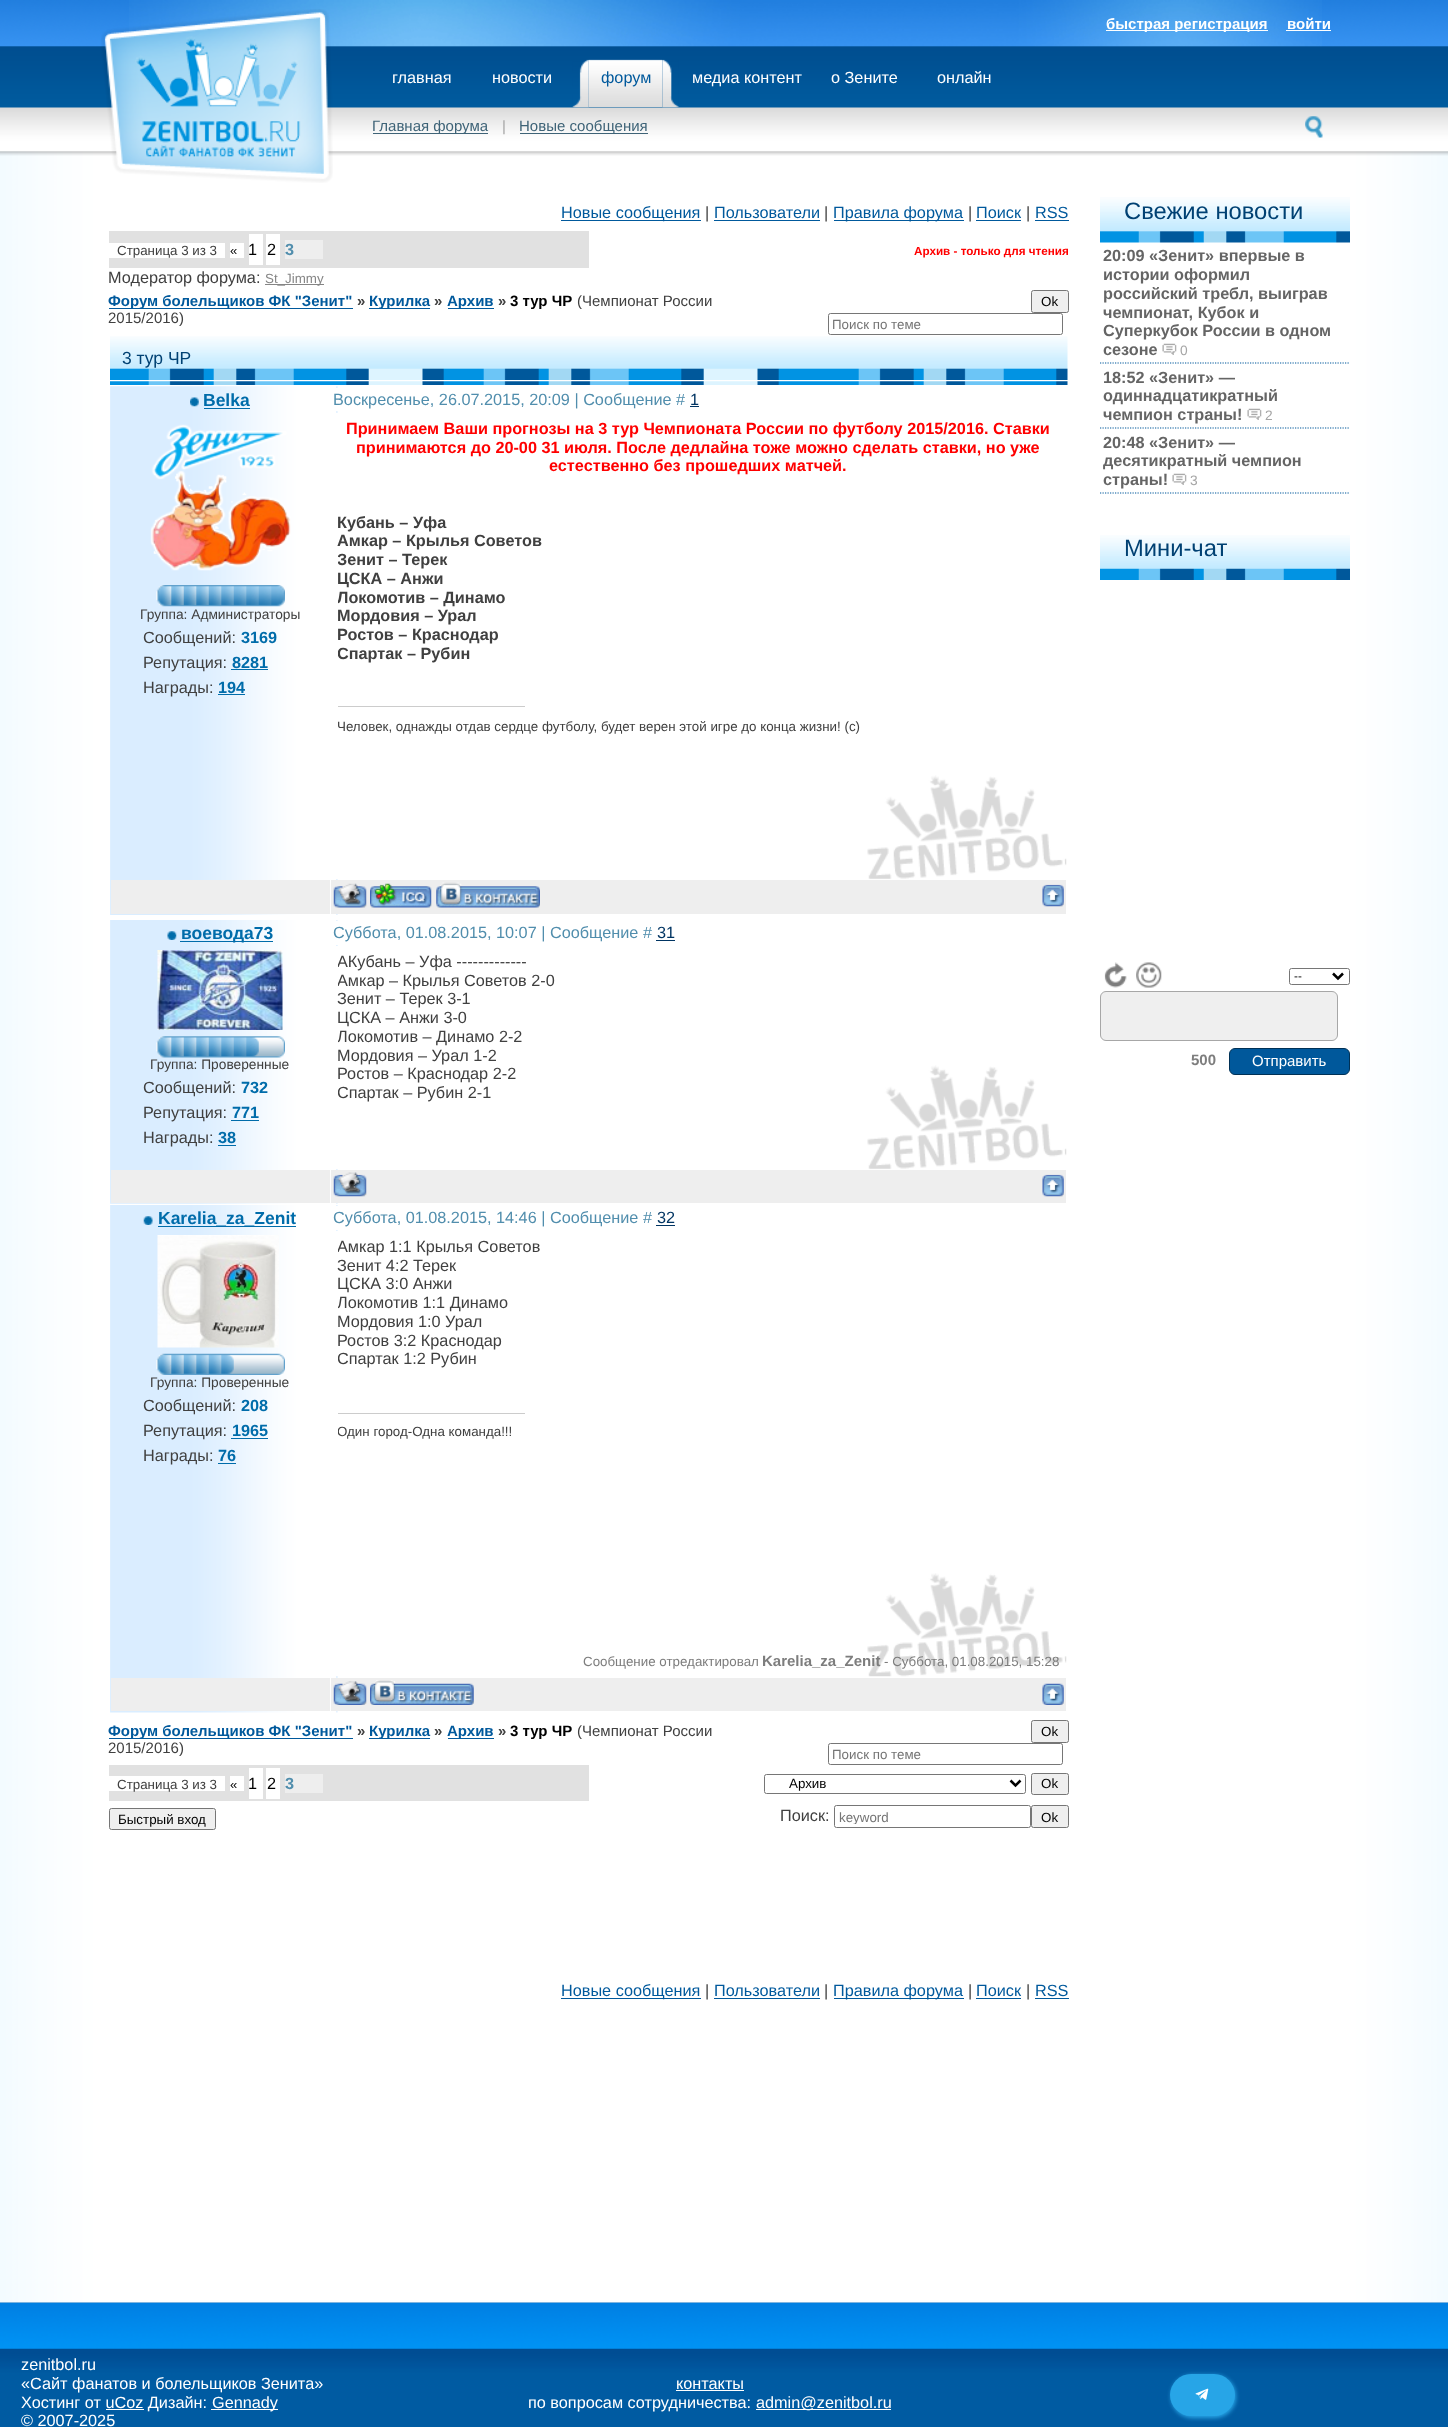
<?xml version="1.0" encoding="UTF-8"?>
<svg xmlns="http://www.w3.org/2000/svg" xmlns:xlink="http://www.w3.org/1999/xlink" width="1448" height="2427">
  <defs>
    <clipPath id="clip1"><rect x="338" y="419" width="722" height="244" /></clipPath>
    <clipPath id="clip2"><rect x="338" y="716" width="625" height="157" /></clipPath>
    <clipPath id="clip3"><rect x="338" y="953" width="722" height="150" /></clipPath>
    <clipPath id="clip4"><rect x="338" y="1238" width="722" height="131" /></clipPath>
    <clipPath id="clip5"><rect x="338" y="1421" width="625" height="157" /></clipPath>
    <clipPath id="clip6"><rect x="839" y="1809" width="187" height="15" /></clipPath>
  </defs>
  <rect width="100%" height="100%" fill="#ffffff" />
  <image x="0" y="151" width="1448" height="2152" xlink:href="image1.png" />
  <image x="0" y="0" width="1448" height="156" xlink:href="image2.png" />
  <image x="129" y="0" width="1193" height="47" xlink:href="image3.png" />
  <image x="101" y="9" width="232" height="174" xlink:href="image4.png" />
  <rect x="1106" y="30" width="162" height="1" fill="#ffffff" />
  <rect x="1286" y="30" width="45" height="1" fill="#ffffff" />
  <image x="572" y="59" width="17" height="49" xlink:href="image5.png" />
  <image x="588" y="59" width="75" height="48" xlink:href="image6.png" />
  <image x="662" y="59" width="17" height="49" xlink:href="image7.png" />
  <rect x="373" y="133" width="115" height="1" fill="#3e6377" />
  <rect x="520" y="133" width="128" height="1" fill="#3e6377" />
  <image x="1305" y="116" width="18" height="22" xlink:href="image8.png" />
  <rect x="561" y="220" width="140" height="1" fill="#00599c" />
  <rect x="714" y="220" width="106" height="1" fill="#00599c" />
  <rect x="834" y="220" width="130" height="1" fill="#00599c" />
  <rect x="976" y="220" width="45" height="1" fill="#00599c" />
  <rect x="1035" y="220" width="34" height="1" fill="#00599c" />
  <rect x="109" y="231" width="480" height="37" fill="#e1e1e1" />
  <rect x="109" y="243" width="116" height="15" fill="#ffffff" />
  <rect x="230" y="243" width="14" height="15" fill="#ffffff" />
  <rect x="249" y="234" width="14" height="31" fill="#ffffff" />
  <rect x="266" y="234" width="14" height="31" fill="#ffffff" />
  <rect x="285" y="240" width="38" height="19" fill="#eeeeee" />
  <rect x="265" y="284" width="59" height="1" fill="#858585" />
  <rect x="109" y="308" width="244" height="1" fill="#00599c" />
  <rect x="369" y="308" width="61" height="1" fill="#00599c" />
  <rect x="448" y="308" width="46" height="1" fill="#00599c" />
  <rect x="1031.5" y="290.5" width="37" height="22" rx="2" fill="#efefef" stroke="#767676" />
  <rect x="828.5" y="313.5" width="234" height="21" rx="2" fill="none" stroke="#767676" />
  <image x="110" y="336" width="958" height="44" xlink:href="image9.png" />
  <image x="110" y="381" width="958" height="4" xlink:href="image10.png" />
  <image x="110" y="386" width="228" height="529" xlink:href="image11.png" />
  <image x="190" y="397" width="9" height="10" xlink:href="image12.png" />
  <rect x="204" y="408" width="46" height="1" fill="#006caa" />
  <image x="150" y="424" width="141" height="147" xlink:href="image13.png" />
  <image x="156" y="585" width="129" height="22" xlink:href="image14.png" />
  <rect x="231" y="669" width="37" height="1" fill="#006caa" />
  <rect x="218" y="694" width="27" height="1" fill="#006caa" />
  <rect x="336" y="388" width="2" height="23" fill="#ffffff" />
  <rect x="690" y="406" width="9" height="1" fill="#003462" />
  <rect x="336" y="413" width="2" height="466" fill="#ffffff" />
  <image x="867" y="775" width="200" height="104" xlink:href="image15.png" />
  <rect x="338" y="706" width="187" height="1" fill="#cccccc" />
  <rect x="111" y="880" width="219" height="34" fill="#eeeeee" />
  <rect x="331" y="880" width="735" height="34" fill="#eeeeee" />
  <image x="333" y="883" width="34" height="25" xlink:href="image16.png" />
  <image x="370" y="883" width="62" height="25" xlink:href="image17.png" />
  <image x="436" y="882" width="104" height="26" xlink:href="image18.png" />
  <image x="1042" y="884" width="22" height="23" xlink:href="image19.png" />
  <image x="110" y="920" width="228" height="284" xlink:href="image20.png" />
  <image x="167" y="931" width="10" height="9" xlink:href="image21.png" />
  <rect x="180" y="941" width="93" height="1" fill="#006caa" />
  <image x="157" y="950" width="126" height="80" xlink:href="image22.png" />
  <image x="156" y="1036" width="129" height="22" xlink:href="image23.png" />
  <rect x="231" y="1120" width="28" height="1" fill="#006caa" />
  <rect x="218" y="1145" width="18" height="1" fill="#006caa" />
  <rect x="336" y="921" width="2" height="24" fill="#ffffff" />
  <rect x="656" y="940" width="19" height="1" fill="#003462" />
  <rect x="336" y="946" width="2" height="223" fill="#ffffff" />
  <image x="867" y="1065" width="200" height="104" xlink:href="image24.png" />
  <rect x="111" y="1170" width="219" height="33" fill="#eeeeee" />
  <rect x="331" y="1170" width="735" height="33" fill="#eeeeee" />
  <image x="333" y="1172" width="34" height="25" xlink:href="image25.png" />
  <image x="1042" y="1174" width="22" height="23" xlink:href="image26.png" />
  <image x="110" y="1205" width="228" height="508" xlink:href="image27.png" />
  <image x="143" y="1216" width="10" height="9" xlink:href="image28.png" />
  <rect x="158" y="1226" width="138" height="1" fill="#006caa" />
  <image x="157" y="1235" width="122" height="113" xlink:href="image29.png" />
  <image x="156" y="1353" width="129" height="22" xlink:href="image30.png" />
  <rect x="231" y="1438" width="37" height="1" fill="#006caa" />
  <rect x="218" y="1463" width="18" height="1" fill="#006caa" />
  <rect x="336" y="1206" width="2" height="24" fill="#ffffff" />
  <rect x="656" y="1225" width="19" height="1" fill="#003462" />
  <rect x="336" y="1231" width="2" height="445" fill="#ffffff" />
  <image x="867" y="1573" width="200" height="104" xlink:href="image31.png" />
  <rect x="338" y="1413" width="187" height="1" fill="#cccccc" />
  <rect x="111" y="1678" width="219" height="33" fill="#eeeeee" />
  <rect x="331" y="1678" width="735" height="33" fill="#eeeeee" />
  <image x="333" y="1681" width="34" height="24" xlink:href="image32.png" />
  <image x="370" y="1680" width="104" height="25" xlink:href="image33.png" />
  <image x="1042" y="1683" width="22" height="22" xlink:href="image34.png" />
  <rect x="109" y="1738" width="244" height="1" fill="#00599c" />
  <rect x="369" y="1738" width="61" height="1" fill="#00599c" />
  <rect x="448" y="1738" width="46" height="1" fill="#00599c" />
  <rect x="1031.5" y="1720.5" width="37" height="22" rx="2" fill="#efefef" stroke="#767676" />
  <rect x="828.5" y="1743.5" width="234" height="21" rx="2" fill="none" stroke="#767676" />
  <rect x="109" y="1765" width="480" height="36" fill="#e1e1e1" />
  <rect x="109" y="1776" width="116" height="15" fill="#ffffff" />
  <rect x="230" y="1776" width="14" height="15" fill="#ffffff" />
  <rect x="249" y="1768" width="14" height="31" fill="#ffffff" />
  <rect x="266" y="1768" width="14" height="31" fill="#ffffff" />
  <rect x="285" y="1774" width="38" height="19" fill="#eeeeee" />
  <rect x="764.5" y="1774.5" width="261" height="19" rx="2" fill="none" stroke="#767676" />
  <path d="M 1010.5 1780.5 l 5 5 l 5 -5" fill="none" stroke="#000000" stroke-width="2.5" />
  <rect x="1031.5" y="1773.5" width="37" height="21" rx="2" fill="#efefef" stroke="#767676" />
  <rect x="109.5" y="1808.5" width="106" height="21" rx="2" fill="#efefef" stroke="#767676" />
  <rect x="834.5" y="1805.5" width="196" height="22" rx="2" fill="none" stroke="#767676" />
  <rect x="1031.5" y="1805.5" width="37" height="22" rx="2" fill="#efefef" stroke="#767676" />
  <rect x="561" y="1998" width="140" height="1" fill="#00599c" />
  <rect x="714" y="1998" width="106" height="1" fill="#00599c" />
  <rect x="834" y="1998" width="130" height="1" fill="#00599c" />
  <rect x="976" y="1998" width="45" height="1" fill="#00599c" />
  <rect x="1035" y="1998" width="34" height="1" fill="#00599c" />
  <image x="1100" y="197" width="250" height="46" xlink:href="image35.png" />
  <path d="M 1100 363 h 250" fill="none" stroke="#00589b" stroke-width="1.2" stroke-dasharray="1.25 1.25" />
  <image x="1162" y="343" width="15" height="12" xlink:href="image36.png" />
  <path d="M 1100 428 h 250" fill="none" stroke="#00589b" stroke-width="1.2" stroke-dasharray="1.25 1.25" />
  <image x="1247" y="408" width="15" height="12" xlink:href="image37.png" />
  <path d="M 1100 493 h 250" fill="none" stroke="#00589b" stroke-width="1.2" stroke-dasharray="1.25 1.25" />
  <image x="1172" y="473" width="15" height="12" xlink:href="image36.png" />
  <image x="1100" y="535" width="250" height="45" xlink:href="image38.png" />
  <image x="1104" y="962" width="23" height="26" xlink:href="image39.png" />
  <image x="1136" y="962" width="26" height="26" xlink:href="image40.png" />
  <rect x="1289.5" y="968.5" width="60" height="16" rx="2" fill="none" stroke="#767676" />
  <path d="M 1333 973.5 l 5 5 l 5 -5" fill="none" stroke="#000000" stroke-width="2.5" />
  <rect x="1100.5" y="991.5" width="237" height="49" rx="5.5" fill="#efefef" stroke="#a7a7a7" />
  <rect x="1229.5" y="1048.5" width="120" height="26" rx="5.5" fill="#00589b" stroke="#003156" />
  <image x="0" y="2302" width="1448" height="125" xlink:href="image41.png" />
  <rect x="106" y="2409" width="38" height="1" fill="#ffffff" />
  <rect x="211" y="2409" width="67" height="1" fill="#ffffff" />
  <rect x="676" y="2390" width="68" height="1" fill="#ffffff" />
  <rect x="756" y="2409" width="135" height="1" fill="#ffffff" />
  <rect x="1171" y="2375" width="65" height="43" rx="21.5" fill="#27a5e7" filter="blur(2px)" />
  <rect x="1170" y="2374" width="65" height="42" rx="21" fill="#27a5e7" />
  <image x="1195" y="2388" width="14" height="12" xlink:href="image42.png" />
  <text x="1106" y="29" style="font-family: Liberation Sans; font-size: 15px; font-weight: bold; fill: #ffffff">быстрая регистрация</text>
  <text x="1287" y="29" style="font-family: Liberation Sans; font-size: 15px; font-weight: bold; fill: #ffffff">войти</text>
  <text x="392" y="83" style="font-family: Liberation Sans; font-size: 16.25px; fill: #ffffff">главная</text>
  <text x="492" y="83" style="font-family: Liberation Sans; font-size: 16.25px; fill: #ffffff">новости</text>
  <text x="601" y="83" style="font-family: Liberation Sans; font-size: 16.25px; fill: #00599c">форум</text>
  <text x="692" y="83" style="font-family: Liberation Sans; font-size: 16.25px; fill: #ffffff">медиа контент</text>
  <text x="831" y="83" style="font-family: Liberation Sans; font-size: 16.25px; fill: #ffffff">о Зените</text>
  <text x="937" y="83" style="font-family: Liberation Sans; font-size: 16.25px; fill: #ffffff">онлайн</text>
  <text x="372" y="131" style="font-family: Liberation Sans; font-size: 15px; fill: #3e6377">Главная форума</text>
  <text x="502" y="131" style="font-family: Liberation Sans; font-size: 15px; fill: #a5a5a5">|</text>
  <text x="519" y="131" style="font-family: Liberation Sans; font-size: 15px; fill: #3e6377">Новые сообщения</text>
  <text x="561" y="218" style="font-family: Liberation Sans; font-size: 16.25px; fill: #00599c">Новые сообщения</text>
  <text x="705" y="218" style="font-family: Liberation Sans; font-size: 16.25px; fill: #404040">|</text>
  <text x="714" y="218" style="font-family: Liberation Sans; font-size: 16.25px; fill: #00599c">Пользователи</text>
  <text x="824" y="218" style="font-family: Liberation Sans; font-size: 16.25px; fill: #404040">|</text>
  <text x="833" y="218" style="font-family: Liberation Sans; font-size: 16.25px; fill: #00599c">Правила форума</text>
  <text x="968" y="218" style="font-family: Liberation Sans; font-size: 16.25px; fill: #404040">|</text>
  <text x="976" y="218" style="font-family: Liberation Sans; font-size: 16.25px; fill: #00599c">Поиск</text>
  <text x="1026" y="218" style="font-family: Liberation Sans; font-size: 16.25px; fill: #404040">|</text>
  <text x="1035" y="218" style="font-family: Liberation Sans; font-size: 16.25px; fill: #00599c">RSS</text>
  <text x="117" y="255" style="font-family: Liberation Sans; font-size: 13.35px; fill: #404040">Страница 3 из 3</text>
  <text x="230" y="255" style="font-family: Liberation Sans; font-size: 13.35px; fill: #000000">«</text>
  <text x="248" y="255" style="font-family: Liberation Sans; font-size: 16.25px; fill: #000000">1</text>
  <text x="267" y="255" style="font-family: Liberation Sans; font-size: 16.25px; fill: #000000">2</text>
  <text x="285" y="255" style="font-family: Liberation Sans; font-size: 16.25px; font-weight: bold; fill: #518ead">3</text>
  <text x="914" y="255" style="font-family: Liberation Sans; font-size: 11.7px; font-weight: bold; fill: #ff0000">Архив - только для чтения</text>
  <text x="108" y="283" style="font-family: Liberation Sans; font-size: 16.25px; fill: #404040">Модератор форума:</text>
  <text x="265" y="283" style="font-family: Liberation Sans; font-size: 13.35px; fill: #858585">St_Jimmy</text>
  <text x="108" y="306" style="font-family: Liberation Sans; font-size: 15px; font-weight: bold; fill: #00599c">Форум болельщиков ФК "Зенит"</text>
  <text x="357" y="306" style="font-family: Liberation Sans; font-size: 15px; font-weight: bold; fill: #404040">»</text>
  <text x="369" y="306" style="font-family: Liberation Sans; font-size: 15px; font-weight: bold; fill: #00599c">Курилка</text>
  <text x="434" y="306" style="font-family: Liberation Sans; font-size: 15px; font-weight: bold; fill: #404040">»</text>
  <text x="447" y="306" style="font-family: Liberation Sans; font-size: 15px; font-weight: bold; fill: #00599c">Архив</text>
  <text x="498" y="306" style="font-family: Liberation Sans; font-size: 15px; font-weight: bold; fill: #404040">»</text>
  <text x="510" y="306" style="font-family: Liberation Sans; font-size: 15px; font-weight: bold; fill: #000000">3 тур ЧР</text>
  <text x="577" y="306" style="font-family: Liberation Sans; font-size: 15px; fill: #404040">(Чемпионат России</text>
  <text x="108" y="323" style="font-family: Liberation Sans; font-size: 15px; fill: #404040">2015/2016)</text>
  <text x="1041" y="306" style="font-family: Liberation Sans; font-size: 13.35px; fill: #000000">Ok</text>
  <text x="832" y="329" style="font-family: Liberation Sans; font-size: 13.35px; fill: #757575">Поиск по теме</text>
  <text x="122" y="364" style="font-family: Liberation Sans; font-size: 17.5px; fill: #004173">3 тур ЧР</text>
  <text x="203" y="406" style="font-family: Liberation Sans; font-size: 17.5px; font-weight: bold; fill: #006caa">Belka</text>
  <text x="140" y="619" style="font-family: Liberation Sans; font-size: 13.75px; fill: #404040">Группа: Администраторы</text>
  <text x="143" y="643" style="font-family: Liberation Sans; font-size: 16.25px; fill: #404040">Сообщений:</text>
  <text x="241" y="643" style="font-family: Liberation Sans; font-size: 16.25px; font-weight: bold; fill: #006caa">3169</text>
  <text x="143" y="668" style="font-family: Liberation Sans; font-size: 16.25px; fill: #404040">Репутация:</text>
  <text x="232" y="668" style="font-family: Liberation Sans; font-size: 16.25px; font-weight: bold; fill: #006caa">8281</text>
  <text x="143" y="693" style="font-family: Liberation Sans; font-size: 16.25px; fill: #404040">Награды:</text>
  <text x="218" y="693" style="font-family: Liberation Sans; font-size: 16.25px; font-weight: bold; fill: #006caa">194</text>
  <text x="333" y="405" style="font-family: Liberation Sans; font-size: 16.25px; fill: #518ead">Воскресенье, 26.07.2015, 20:09 | Сообщение #</text>
  <text x="690" y="405" style="font-family: Liberation Sans; font-size: 16.25px; fill: #003462">1</text>
  <text x="346" y="434" style="font-family: Liberation Sans; font-size: 16.25px; font-weight: bold; fill: #ff0000">Принимаем Ваши прогнозы на 3 тур Чемпионата России по футболу 2015/2016. Ставки</text>
  <text x="356" y="453" style="font-family: Liberation Sans; font-size: 16.25px; font-weight: bold; fill: #ff0000">принимаются до 20-00 31 июля. После дедлайна тоже можно сделать ставки, но уже</text>
  <text x="549" y="471" style="font-family: Liberation Sans; font-size: 16.25px; font-weight: bold; fill: #ff0000">естественно без прошедших матчей.</text>
  <text x="337" y="528" style="font-family: Liberation Sans; font-size: 16.25px; font-weight: bold; fill: #404040">Кубань – Уфа</text>
  <text x="337" y="546" style="font-family: Liberation Sans; font-size: 16.25px; font-weight: bold; fill: #404040">Амкар – Крылья Советов</text>
  <g clip-path="url(#clip1)">
    <text x="337" y="565" style="font-family: Liberation Sans; font-size: 16.25px; font-weight: bold; fill: #404040">Зенит – Терек</text>
  </g>
  <text x="337" y="584" style="font-family: Liberation Sans; font-size: 16.25px; font-weight: bold; fill: #404040">ЦСКА – Анжи</text>
  <g clip-path="url(#clip1)">
    <text x="337" y="603" style="font-family: Liberation Sans; font-size: 16.25px; font-weight: bold; fill: #404040">Локомотив – Динамо</text>
  </g>
  <text x="337" y="621" style="font-family: Liberation Sans; font-size: 16.25px; font-weight: bold; fill: #404040">Мордовия – Урал</text>
  <text x="337" y="640" style="font-family: Liberation Sans; font-size: 16.25px; font-weight: bold; fill: #404040">Ростов – Краснодар</text>
  <g clip-path="url(#clip1)">
    <text x="337" y="659" style="font-family: Liberation Sans; font-size: 16.25px; font-weight: bold; fill: #404040">Спартак – Рубин</text>
  </g>
  <g clip-path="url(#clip2)">
    <text x="337" y="731" style="font-family: Liberation Sans; font-size: 13.35px; fill: #404040">Человек, однажды отдав сердце футболу, будет верен этой игре до конца жизни! (с)</text>
  </g>
  <text x="181" y="939" style="font-family: Liberation Sans; font-size: 17.5px; font-weight: bold; fill: #006caa">воевода73</text>
  <text x="150" y="1069" style="font-family: Liberation Sans; font-size: 13.75px; fill: #404040">Группа: Проверенные</text>
  <text x="143" y="1093" style="font-family: Liberation Sans; font-size: 16.25px; fill: #404040">Сообщений:</text>
  <text x="241" y="1093" style="font-family: Liberation Sans; font-size: 16.25px; font-weight: bold; fill: #006caa">732</text>
  <text x="143" y="1118" style="font-family: Liberation Sans; font-size: 16.25px; fill: #404040">Репутация:</text>
  <text x="232" y="1118" style="font-family: Liberation Sans; font-size: 16.25px; font-weight: bold; fill: #006caa">771</text>
  <text x="143" y="1143" style="font-family: Liberation Sans; font-size: 16.25px; fill: #404040">Награды:</text>
  <text x="218" y="1143" style="font-family: Liberation Sans; font-size: 16.25px; font-weight: bold; fill: #006caa">38</text>
  <text x="333" y="938" style="font-family: Liberation Sans; font-size: 16.25px; fill: #518ead">Суббота, 01.08.2015, 10:07 | Сообщение #</text>
  <text x="657" y="938" style="font-family: Liberation Sans; font-size: 16.25px; fill: #003462">31</text>
  <g clip-path="url(#clip3)">
    <text x="337" y="967" style="font-family: Liberation Sans; font-size: 16.25px; fill: #404040">АКубань – Уфа -------------</text>
    <text x="337" y="986" style="font-family: Liberation Sans; font-size: 16.25px; fill: #404040">Амкар – Крылья Советов 2-0</text>
  </g>
  <text x="337" y="1004" style="font-family: Liberation Sans; font-size: 16.25px; fill: #404040">Зенит – Терек 3-1</text>
  <text x="337" y="1023" style="font-family: Liberation Sans; font-size: 16.25px; fill: #404040">ЦСКА – Анжи 3-0</text>
  <g clip-path="url(#clip3)">
    <text x="337" y="1042" style="font-family: Liberation Sans; font-size: 16.25px; fill: #404040">Локомотив – Динамо 2-2</text>
  </g>
  <text x="337" y="1061" style="font-family: Liberation Sans; font-size: 16.25px; fill: #404040">Мордовия – Урал 1-2</text>
  <text x="337" y="1079" style="font-family: Liberation Sans; font-size: 16.25px; fill: #404040">Ростов – Краснодар 2-2</text>
  <g clip-path="url(#clip3)">
    <text x="337" y="1098" style="font-family: Liberation Sans; font-size: 16.25px; fill: #404040">Спартак – Рубин 2-1</text>
  </g>
  <text x="158" y="1224" style="font-family: Liberation Sans; font-size: 17.5px; font-weight: bold; fill: #006caa">Karelia_za_Zenit</text>
  <text x="150" y="1387" style="font-family: Liberation Sans; font-size: 13.75px; fill: #404040">Группа: Проверенные</text>
  <text x="143" y="1411" style="font-family: Liberation Sans; font-size: 16.25px; fill: #404040">Сообщений:</text>
  <text x="241" y="1411" style="font-family: Liberation Sans; font-size: 16.25px; font-weight: bold; fill: #006caa">208</text>
  <text x="143" y="1436" style="font-family: Liberation Sans; font-size: 16.25px; fill: #404040">Репутация:</text>
  <text x="232" y="1436" style="font-family: Liberation Sans; font-size: 16.25px; font-weight: bold; fill: #006caa">1965</text>
  <text x="143" y="1461" style="font-family: Liberation Sans; font-size: 16.25px; fill: #404040">Награды:</text>
  <text x="218" y="1461" style="font-family: Liberation Sans; font-size: 16.25px; font-weight: bold; fill: #006caa">76</text>
  <text x="333" y="1223" style="font-family: Liberation Sans; font-size: 16.25px; fill: #518ead">Суббота, 01.08.2015, 14:46 | Сообщение #</text>
  <text x="657" y="1223" style="font-family: Liberation Sans; font-size: 16.25px; fill: #003462">32</text>
  <g clip-path="url(#clip4)">
    <text x="337" y="1252" style="font-family: Liberation Sans; font-size: 16.25px; fill: #404040">Амкар 1:1 Крылья Советов</text>
  </g>
  <text x="337" y="1271" style="font-family: Liberation Sans; font-size: 16.25px; fill: #404040">Зенит 4:2 Терек</text>
  <text x="337" y="1289" style="font-family: Liberation Sans; font-size: 16.25px; fill: #404040">ЦСКА 3:0 Анжи</text>
  <g clip-path="url(#clip4)">
    <text x="337" y="1308" style="font-family: Liberation Sans; font-size: 16.25px; fill: #404040">Локомотив 1:1 Динамо</text>
  </g>
  <text x="337" y="1327" style="font-family: Liberation Sans; font-size: 16.25px; fill: #404040">Мордовия 1:0 Урал</text>
  <text x="337" y="1346" style="font-family: Liberation Sans; font-size: 16.25px; fill: #404040">Ростов 3:2 Краснодар</text>
  <g clip-path="url(#clip4)">
    <text x="337" y="1364" style="font-family: Liberation Sans; font-size: 16.25px; fill: #404040">Спартак 1:2 Рубин</text>
  </g>
  <g clip-path="url(#clip5)">
    <text x="337" y="1436" style="font-family: Liberation Sans; font-size: 13.35px; fill: #404040">Один город-Одна команда!!!</text>
  </g>
  <text x="583" y="1666" style="font-family: Liberation Sans; font-size: 13.35px; fill: #7d7d7d">Сообщение отредактировал</text>
  <text x="762" y="1666" style="font-family: Liberation Sans; font-size: 15px; font-weight: bold; fill: #7d7d7d">Karelia_za_Zenit</text>
  <text x="884" y="1666" style="font-family: Liberation Sans; font-size: 13.35px; fill: #7d7d7d">- Суббота, 01.08.2015, 15:28</text>
  <text x="108" y="1736" style="font-family: Liberation Sans; font-size: 15px; font-weight: bold; fill: #00599c">Форум болельщиков ФК "Зенит"</text>
  <text x="357" y="1736" style="font-family: Liberation Sans; font-size: 15px; font-weight: bold; fill: #404040">»</text>
  <text x="369" y="1736" style="font-family: Liberation Sans; font-size: 15px; font-weight: bold; fill: #00599c">Курилка</text>
  <text x="434" y="1736" style="font-family: Liberation Sans; font-size: 15px; font-weight: bold; fill: #404040">»</text>
  <text x="447" y="1736" style="font-family: Liberation Sans; font-size: 15px; font-weight: bold; fill: #00599c">Архив</text>
  <text x="498" y="1736" style="font-family: Liberation Sans; font-size: 15px; font-weight: bold; fill: #404040">»</text>
  <text x="510" y="1736" style="font-family: Liberation Sans; font-size: 15px; font-weight: bold; fill: #000000">3 тур ЧР</text>
  <text x="577" y="1736" style="font-family: Liberation Sans; font-size: 15px; fill: #404040">(Чемпионат России</text>
  <text x="108" y="1753" style="font-family: Liberation Sans; font-size: 15px; fill: #404040">2015/2016)</text>
  <text x="1041" y="1736" style="font-family: Liberation Sans; font-size: 13.35px; fill: #000000">Ok</text>
  <text x="832" y="1759" style="font-family: Liberation Sans; font-size: 13.35px; fill: #757575">Поиск по теме</text>
  <text x="117" y="1789" style="font-family: Liberation Sans; font-size: 13.35px; fill: #404040">Страница 3 из 3</text>
  <text x="230" y="1789" style="font-family: Liberation Sans; font-size: 13.35px; fill: #000000">«</text>
  <text x="248" y="1789" style="font-family: Liberation Sans; font-size: 16.25px; fill: #000000">1</text>
  <text x="267" y="1789" style="font-family: Liberation Sans; font-size: 16.25px; fill: #000000">2</text>
  <text x="285" y="1789" style="font-family: Liberation Sans; font-size: 16.25px; font-weight: bold; fill: #518ead">3</text>
  <text x="789" y="1788" style="font-family: Liberation Sans; font-size: 13.35px; fill: #000000">Архив</text>
  <text x="1041" y="1788" style="font-family: Liberation Sans; font-size: 13.35px; fill: #000000">Ok</text>
  <text x="118" y="1824" style="font-family: Liberation Sans; font-size: 13.35px; fill: #000000">Быстрый вход</text>
  <text x="780" y="1821" style="font-family: Liberation Sans; font-size: 16.25px; fill: #404040">Поиск:</text>
  <g clip-path="url(#clip6)">
    <text x="839" y="1822" style="font-family: Liberation Sans; font-size: 13.35px; fill: #757575">keyword</text>
  </g>
  <text x="1041" y="1822" style="font-family: Liberation Sans; font-size: 13.35px; fill: #000000">Ok</text>
  <text x="561" y="1996" style="font-family: Liberation Sans; font-size: 16.25px; fill: #00599c">Новые сообщения</text>
  <text x="705" y="1996" style="font-family: Liberation Sans; font-size: 16.25px; fill: #404040">|</text>
  <text x="714" y="1996" style="font-family: Liberation Sans; font-size: 16.25px; fill: #00599c">Пользователи</text>
  <text x="824" y="1996" style="font-family: Liberation Sans; font-size: 16.25px; fill: #404040">|</text>
  <text x="833" y="1996" style="font-family: Liberation Sans; font-size: 16.25px; fill: #00599c">Правила форума</text>
  <text x="968" y="1996" style="font-family: Liberation Sans; font-size: 16.25px; fill: #404040">|</text>
  <text x="976" y="1996" style="font-family: Liberation Sans; font-size: 16.25px; fill: #00599c">Поиск</text>
  <text x="1026" y="1996" style="font-family: Liberation Sans; font-size: 16.25px; fill: #404040">|</text>
  <text x="1035" y="1996" style="font-family: Liberation Sans; font-size: 16.25px; fill: #00599c">RSS</text>
  <text x="1124" y="219" style="font-family: Liberation Sans; font-size: 23.75px; fill: #004173">Свежие новости</text>
  <text x="1103" y="261" style="font-family: Liberation Sans; font-size: 16.25px; font-weight: bold; fill: #656565">20:09 «Зенит» впервые в</text>
  <text x="1103" y="280" style="font-family: Liberation Sans; font-size: 16.25px; font-weight: bold; fill: #656565">истории оформил</text>
  <text x="1103" y="299" style="font-family: Liberation Sans; font-size: 16.25px; font-weight: bold; fill: #656565">российский требл, выиграв</text>
  <text x="1103" y="318" style="font-family: Liberation Sans; font-size: 16.25px; font-weight: bold; fill: #656565">чемпионат, Кубок и</text>
  <text x="1103" y="336" style="font-family: Liberation Sans; font-size: 16.25px; font-weight: bold; fill: #656565">Суперкубок России в одном</text>
  <text x="1103" y="355" style="font-family: Liberation Sans; font-size: 16.25px; font-weight: bold; fill: #656565">сезоне</text>
  <text x="1180" y="355" style="font-family: Liberation Sans; font-size: 13.75px; fill: #a5a5a5">0</text>
  <text x="1103" y="383" style="font-family: Liberation Sans; font-size: 16.25px; font-weight: bold; fill: #656565">18:52 «Зенит» —</text>
  <text x="1103" y="401" style="font-family: Liberation Sans; font-size: 16.25px; font-weight: bold; fill: #656565">одиннадцатикратный</text>
  <text x="1103" y="420" style="font-family: Liberation Sans; font-size: 16.25px; font-weight: bold; fill: #656565">чемпион страны!</text>
  <text x="1265" y="420" style="font-family: Liberation Sans; font-size: 13.75px; fill: #a5a5a5">2</text>
  <text x="1103" y="448" style="font-family: Liberation Sans; font-size: 16.25px; font-weight: bold; fill: #656565">20:48 «Зенит» —</text>
  <text x="1103" y="466" style="font-family: Liberation Sans; font-size: 16.25px; font-weight: bold; fill: #656565">десятикратный чемпион</text>
  <text x="1103" y="485" style="font-family: Liberation Sans; font-size: 16.25px; font-weight: bold; fill: #656565">страны!</text>
  <text x="1190" y="485" style="font-family: Liberation Sans; font-size: 13.75px; fill: #a5a5a5">3</text>
  <text x="1124" y="556" style="font-family: Liberation Sans; font-size: 23.75px; fill: #004173">Мини-чат</text>
  <text x="1294" y="980" style="font-family: Liberation Sans; font-size: 11.7px; fill: #000000">--</text>
  <text x="1191" y="1065" style="font-family: Liberation Sans; font-size: 15px; font-weight: bold; fill: #7d7d7d">500</text>
  <text x="1252" y="1066" style="font-family: Liberation Sans; font-size: 15px; fill: #ffffff">Отправить</text>
  <text x="21" y="2370" style="font-family: Liberation Sans; font-size: 16.25px; fill: #ffffff">zenitbol.ru</text>
  <text x="21" y="2389" style="font-family: Liberation Sans; font-size: 16.25px; fill: #ffffff">«Сайт фанатов и болельщиков Зенита»</text>
  <text x="21" y="2408" style="font-family: Liberation Sans; font-size: 16.25px; fill: #ffffff">Хостинг от uCoz Дизайн:</text>
  <text x="212" y="2408" style="font-family: Liberation Sans; font-size: 16.25px; fill: #ffffff">Gennady</text>
  <text x="21" y="2426" style="font-family: Liberation Sans; font-size: 16.25px; fill: #ffffff">© 2007-2025</text>
  <text x="676" y="2389" style="font-family: Liberation Sans; font-size: 16.25px; fill: #ffffff">контакты</text>
  <text x="528" y="2408" style="font-family: Liberation Sans; font-size: 16.25px; fill: #ffffff">по вопросам сотрудничества:</text>
  <text x="756" y="2408" style="font-family: Liberation Sans; font-size: 16.25px; fill: #ffffff">admin@zenitbol.ru</text>
</svg>
